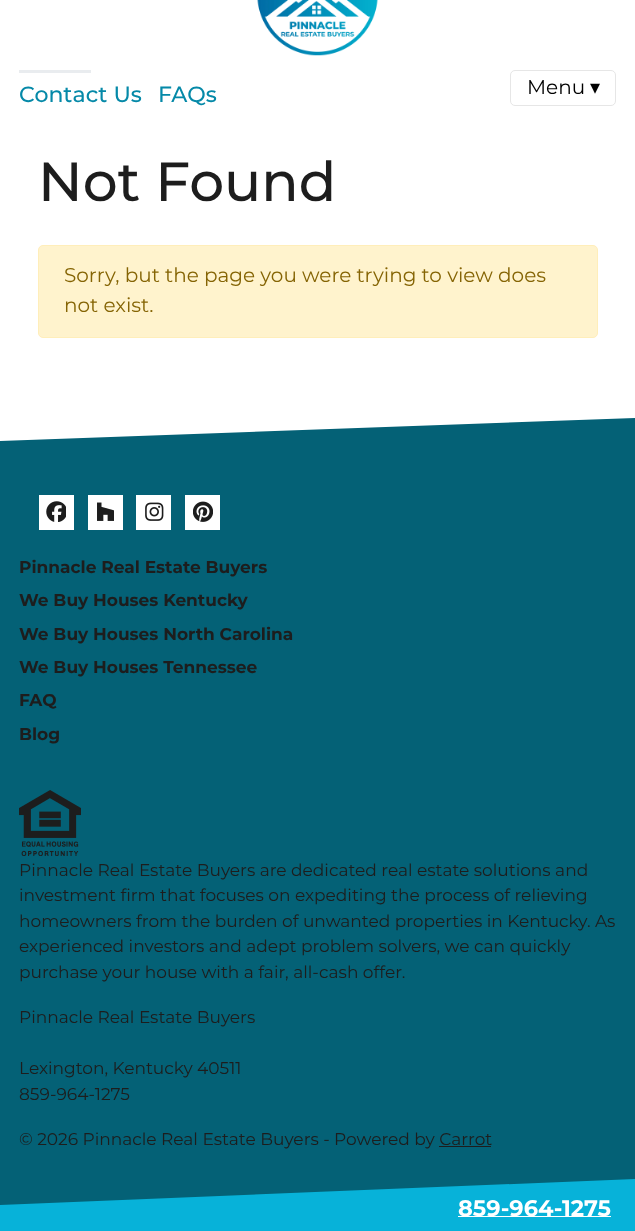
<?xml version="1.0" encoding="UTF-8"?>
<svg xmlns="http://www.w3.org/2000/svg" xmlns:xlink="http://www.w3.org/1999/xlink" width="635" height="1231">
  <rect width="100%" height="100%" fill="#ffffff" />
  <image x="257" y="0" width="121" height="56" xlink:href="image1.png" />
  <rect x="19" y="70" width="72" height="3" fill="#e9ecef" />
  <rect x="510.5" y="70.5" width="105" height="35" rx="4.5" fill="none" stroke="#e6e6e6" />
  <rect x="38.5" y="245.5" width="559" height="92" rx="4.5" fill="#fff3cd" stroke="#ffeeba" />
  <rect y="418" width="635" height="787" fill="#046176" />
  <path d="M 635 418 v -2 h -635 v 25 z" fill="#ffffff" />
  <rect x="39" y="495" width="35" height="35" fill="#ffffff" />
  <image x="46" y="501" width="20" height="21" xlink:href="image2.png" />
  <rect x="88" y="495" width="35" height="35" fill="#ffffff" />
  <image x="97" y="502" width="17" height="19" xlink:href="image3.png" />
  <rect x="136" y="495" width="35" height="35" fill="#ffffff" />
  <image x="145" y="502" width="19" height="19" xlink:href="image4.png" />
  <rect x="185" y="495" width="35" height="35" fill="#ffffff" />
  <image x="193" y="501" width="20" height="21" xlink:href="image5.png" />
  <image x="19" y="790" width="62" height="66" xlink:href="image6.png" />
  <rect x="439" y="1146" width="52" height="1" fill="#1d1d1d" />
  <path d="M 0 1205 v 26 h 635 v -52 z" fill="#07b2d9" />
  <rect x="458" y="1216" width="153" height="1" fill="#ffffff" />
  <text x="19" y="102" style="font-family: Montserrat; font-size: 22px; font-weight: 500; fill: #0589a8">Contact Us</text>
  <text x="158" y="102" style="font-family: Montserrat; font-size: 22px; font-weight: 500; fill: #0589a8">FAQs</text>
  <text x="527" y="94" style="font-family: Montserrat; font-size: 20px; fill: #000000">Menu</text>
  <text x="590" y="94" style="font-family: DejaVu Sans; font-size: 20px; fill: #000000">▾</text>
  <text x="38" y="201" style="font-family: Montserrat; font-size: 55px; font-weight: 500; fill: #1d1d1d">Not Found</text>
  <text x="64" y="282" style="font-family: Montserrat; font-size: 20px; fill: #856404">Sorry, but the page you were trying to view does</text>
  <text x="64" y="312" style="font-family: Montserrat; font-size: 20px; fill: #856404">not exist.</text>
  <text x="19" y="573" style="font-family: Montserrat; font-size: 17px; font-weight: bold; fill: #1d1d1d">Pinnacle Real Estate Buyers</text>
  <text x="19" y="606" style="font-family: Montserrat; font-size: 17px; font-weight: bold; fill: #1d1d1d">We Buy Houses Kentucky</text>
  <text x="19" y="640" style="font-family: Montserrat; font-size: 17px; font-weight: bold; fill: #1d1d1d">We Buy Houses North Carolina</text>
  <text x="19" y="673" style="font-family: Montserrat; font-size: 17px; font-weight: bold; fill: #1d1d1d">We Buy Houses Tennessee</text>
  <text x="19" y="706" style="font-family: Montserrat; font-size: 17px; font-weight: bold; fill: #1d1d1d">FAQ</text>
  <text x="19" y="740" style="font-family: Montserrat; font-size: 17px; font-weight: bold; fill: #1d1d1d">Blog</text>
  <text x="19" y="876" style="font-family: Montserrat; font-size: 17px; fill: #1d1d1d">Pinnacle Real Estate Buyers are dedicated real estate solutions and</text>
  <text x="19" y="901" style="font-family: Montserrat; font-size: 17px; fill: #1d1d1d">investment firm that focuses on expediting the process of relieving</text>
  <text x="19" y="927" style="font-family: Montserrat; font-size: 17px; fill: #1d1d1d">homeowners from the burden of unwanted properties in Kentucky. As</text>
  <text x="19" y="952" style="font-family: Montserrat; font-size: 17px; fill: #1d1d1d">experienced investors and adept problem solvers, we can quickly</text>
  <text x="19" y="978" style="font-family: Montserrat; font-size: 17px; fill: #1d1d1d">purchase your house with a fair, all-cash offer.</text>
  <text x="19" y="1023" style="font-family: Montserrat; font-size: 17px; fill: #1d1d1d">Pinnacle Real Estate Buyers</text>
  <text x="19" y="1074" style="font-family: Montserrat; font-size: 17px; fill: #1d1d1d">Lexington, Kentucky 40511</text>
  <text x="19" y="1100" style="font-family: Montserrat; font-size: 17px; fill: #1d1d1d">859-964-1275</text>
  <text x="19" y="1145" style="font-family: Montserrat; font-size: 17px; fill: #1d1d1d">© 2026 Pinnacle Real Estate Buyers - Powered by Carrot</text>
  <text x="458" y="1216" style="font-family: Montserrat; font-size: 22.5px; font-weight: bold; fill: #ffffff">859-964-1275</text>
</svg>
